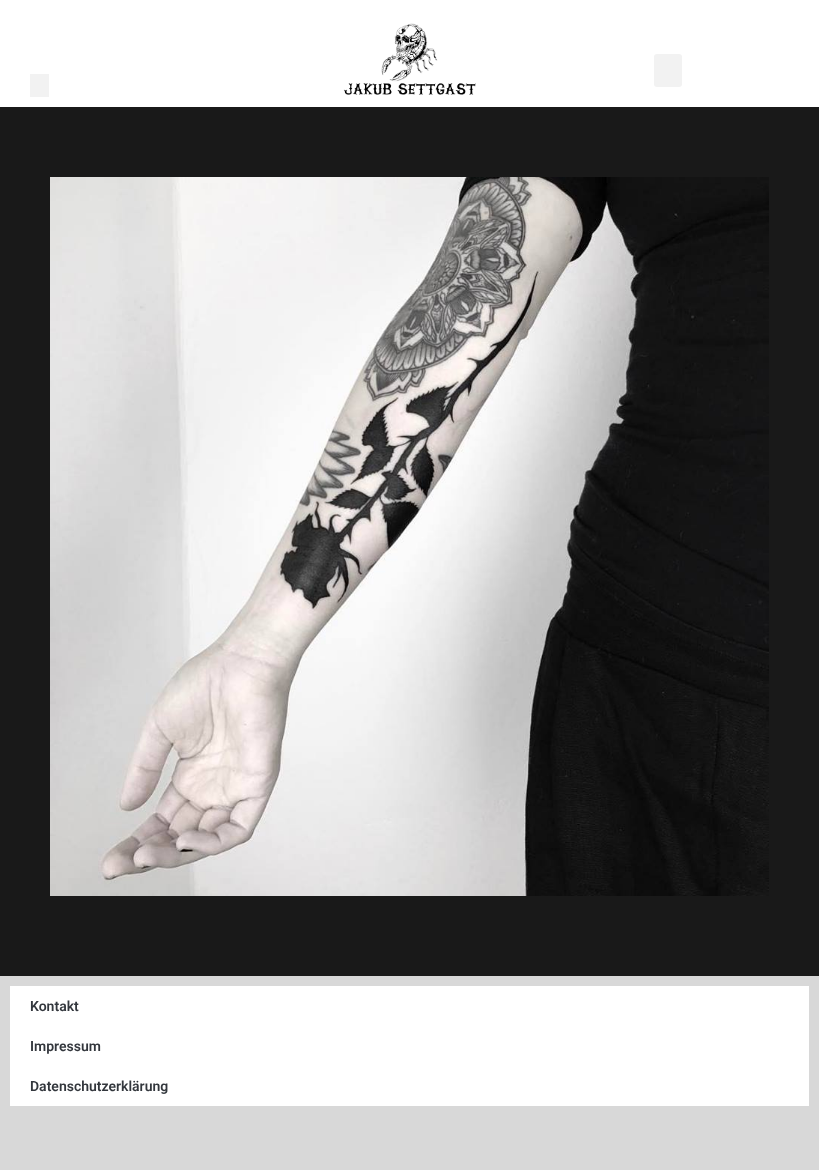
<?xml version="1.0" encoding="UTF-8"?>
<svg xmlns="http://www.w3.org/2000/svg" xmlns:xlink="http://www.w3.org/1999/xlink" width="819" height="1170">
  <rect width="100%" height="100%" fill="#d8d8d8" />
  <rect y="107" width="819" height="869" fill="#191919" />
  <rect width="819" height="107" fill="#ffffff" />
  <rect x="30" y="74" width="19" height="23" fill="#f2f2f2" />
  <image x="343" y="23" width="133" height="72" xlink:href="image1.png" />
  <rect x="654" y="54" width="28" height="33" rx="3" fill="#f2f2f2" />
  <image x="50" y="177" width="719" height="719" xlink:href="image2.png" />
  <rect x="10" y="986" width="799" height="120" fill="#ffffff" />
  <text x="30" y="1011" style="font-family: Roboto; font-size: 14px; font-weight: 600; fill: #33373d">Kontakt</text>
  <text x="30" y="1051" style="font-family: Roboto; font-size: 14px; font-weight: 600; fill: #33373d">Impressum</text>
  <text x="30" y="1091" style="font-family: Roboto; font-size: 14px; font-weight: 600; fill: #33373d">Datenschutzerklärung</text>
</svg>
